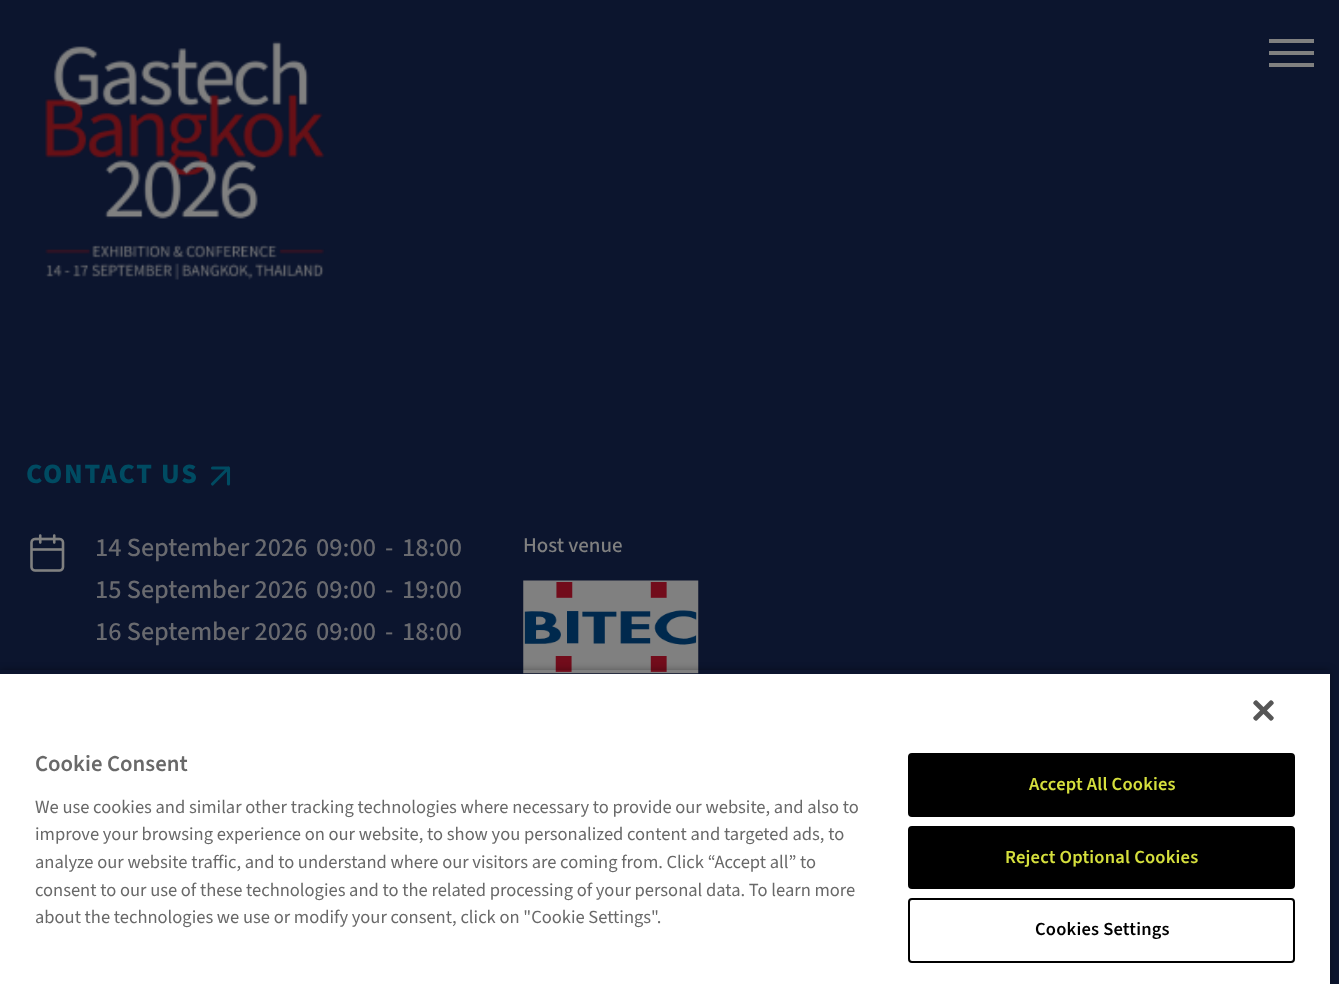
<?xml version="1.0" encoding="UTF-8"?>
<svg xmlns="http://www.w3.org/2000/svg" xmlns:xlink="http://www.w3.org/1999/xlink" width="1339" height="984">
  <defs>
    <clipPath id="clip1"><path d="M 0 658 h 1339 v 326 h -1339 z m 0 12 h 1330 v 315 h -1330 z" clip-rule="evenodd" /></clipPath>
  </defs>
  <rect width="100%" height="100%" fill="#0c152e" />
  <image x="45" y="41" width="280" height="239" xlink:href="image1.png" />
  <rect x="1269" y="39" width="45" height="4" fill="#808080" />
  <rect x="1269" y="51" width="45" height="4" fill="#808080" />
  <rect x="1269" y="63" width="45" height="4" fill="#808080" />
  <path d="M 212.5 484 l 16 -16 m -16 0 h 16 v 16" fill="none" stroke="#004b62" stroke-width="3.1" stroke-linecap="round" stroke-linejoin="round" />
  <image x="30" y="534" width="35" height="38" xlink:href="image2.png" />
  <image x="523" y="580" width="176" height="94" xlink:href="image3.png" />
  <g clip-path="url(#clip1)">
    <rect y="670" width="1330" height="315" fill="#000000" fill-opacity="0.35" filter="blur(3.5px)" />
  </g>
  <rect y="674" width="1330" height="310" fill="#ffffff" />
  <image x="1253" y="700" width="21" height="21" xlink:href="image4.png" />
  <rect x="909" y="754" width="385" height="62" rx="3" fill="#000000" stroke="#000000" stroke-width="2" />
  <rect x="909" y="827" width="385" height="61" rx="3" fill="#000000" stroke="#000000" stroke-width="2" />
  <rect x="909" y="899" width="385" height="63" rx="3" fill="none" stroke="#000000" stroke-width="2" />
  <text x="26" y="483" style="font-family: 'Source Sans 3'; font-size: 28px; font-weight: 800; letter-spacing: 1.75px; fill: #004b62">CONTACT US</text>
  <text x="95" y="556" style="font-family: 'Source Sans 3'; font-size: 26.25px; font-weight: 500; fill: #696a6f">14 September 2026</text>
  <text x="316" y="556" style="font-family: 'Source Sans 3'; font-size: 26.25px; font-weight: 500; fill: #696a6f">09:00</text>
  <text x="385" y="556" style="font-family: 'Source Sans 3'; font-size: 26.25px; font-weight: 500; fill: #696a6f">-</text>
  <text x="402" y="556" style="font-family: 'Source Sans 3'; font-size: 26.25px; font-weight: 500; fill: #696a6f">18:00</text>
  <text x="95" y="598" style="font-family: 'Source Sans 3'; font-size: 26.25px; font-weight: 500; fill: #696a6f">15 September 2026</text>
  <text x="316" y="598" style="font-family: 'Source Sans 3'; font-size: 26.25px; font-weight: 500; fill: #696a6f">09:00</text>
  <text x="385" y="598" style="font-family: 'Source Sans 3'; font-size: 26.25px; font-weight: 500; fill: #696a6f">-</text>
  <text x="402" y="598" style="font-family: 'Source Sans 3'; font-size: 26.25px; font-weight: 500; fill: #696a6f">19:00</text>
  <text x="95" y="640" style="font-family: 'Source Sans 3'; font-size: 26.25px; font-weight: 500; fill: #696a6f">16 September 2026</text>
  <text x="316" y="640" style="font-family: 'Source Sans 3'; font-size: 26.25px; font-weight: 500; fill: #696a6f">09:00</text>
  <text x="385" y="640" style="font-family: 'Source Sans 3'; font-size: 26.25px; font-weight: 500; fill: #696a6f">-</text>
  <text x="402" y="640" style="font-family: 'Source Sans 3'; font-size: 26.25px; font-weight: 500; fill: #696a6f">18:00</text>
  <text x="523" y="552" style="font-family: 'Source Sans 3'; font-size: 21px; font-weight: 500; fill: #808080">Host venue</text>
  <text x="35" y="771" style="font-family: 'Source Sans 3'; font-size: 22.75px; font-weight: 600; fill: #696969">Cookie Consent</text>
  <text x="35" y="813" style="font-family: 'Source Sans 3'; font-size: 18.5px; fill: #696969">We use cookies and similar other tracking technologies where necessary to provide our website, and also to</text>
  <text x="35" y="840" style="font-family: 'Source Sans 3'; font-size: 18.5px; fill: #696969">improve your browsing experience on our website, to show you personalized content and targeted ads, to</text>
  <text x="35" y="868" style="font-family: 'Source Sans 3'; font-size: 18.5px; fill: #696969">analyze our website traffic, and to understand where our visitors are coming from. Click “Accept all” to</text>
  <text x="35" y="896" style="font-family: 'Source Sans 3'; font-size: 18.5px; fill: #696969">consent to our use of these technologies and to the related processing of your personal data. To learn more</text>
  <text x="35" y="923" style="font-family: 'Source Sans 3'; font-size: 18.5px; fill: #696969">about the technologies we use or modify your consent, click on "Cookie Settings".</text>
  <text x="1029" y="790" style="font-family: 'Source Sans 3'; font-size: 18.5px; font-weight: 600; letter-spacing: 0.2px; fill: #d6e03d">Accept All Cookies</text>
  <text x="1005" y="863" style="font-family: 'Source Sans 3'; font-size: 18.5px; font-weight: 600; letter-spacing: 0.2px; fill: #d6e03d">Reject Optional Cookies</text>
  <text x="1035" y="935" style="font-family: 'Source Sans 3'; font-size: 18.5px; font-weight: 600; letter-spacing: 0.2px; fill: #000000">Cookies Settings</text>
</svg>
